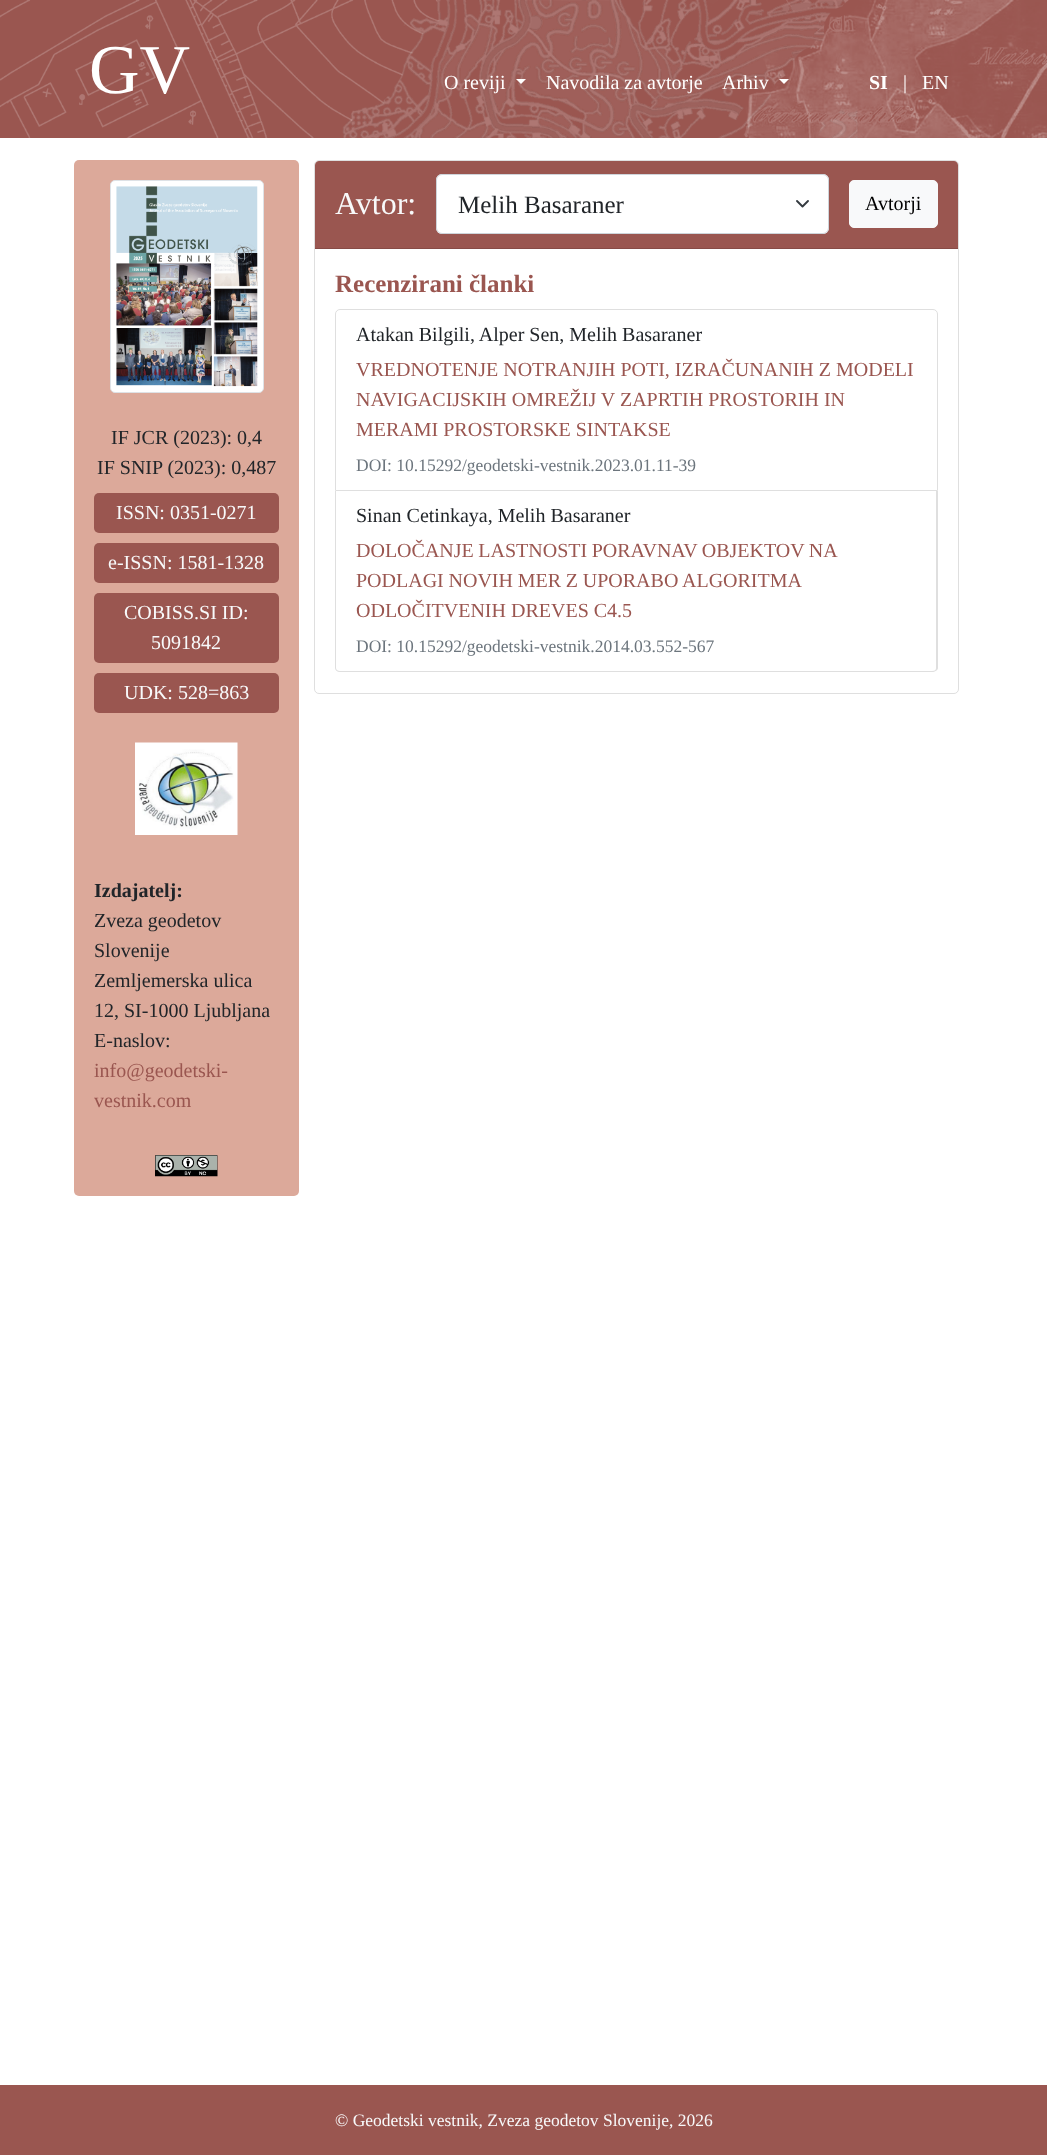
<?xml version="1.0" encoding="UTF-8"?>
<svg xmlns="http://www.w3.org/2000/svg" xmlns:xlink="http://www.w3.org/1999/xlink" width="1047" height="2155">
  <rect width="100%" height="100%" fill="#ffffff" />
  <rect width="1047" height="138" fill="#9a5650" />
  <image x="0" y="0" width="1047" height="138" xlink:href="image1.png" />
  <path d="M 516 79 h 10 l -5 5 z" fill="#ffffff" />
  <path d="M 779 79 h 10 l -5 5 z" fill="#ffffff" />
  <rect x="74" y="160" width="225" height="1036" rx="5" fill="#dca99a" />
  <rect x="110.5" y="180.5" width="153" height="212" rx="4.5" fill="#ffffff" stroke="#dee2e6" />
  <image x="116" y="186" width="142" height="201" xlink:href="image2.png" />
  <rect x="94" y="493" width="185" height="40" rx="5" fill="#9a5650" />
  <rect x="94" y="543" width="185" height="40" rx="5" fill="#9a5650" />
  <rect x="94" y="593" width="185" height="70" rx="5" fill="#9a5650" />
  <rect x="94" y="673" width="185" height="40" rx="5" fill="#9a5650" />
  <image x="135" y="742" width="103" height="93" xlink:href="image3.png" />
  <image x="155" y="1155" width="63" height="22" xlink:href="image4.png" />
  <rect x="314.5" y="160.5" width="644" height="533" rx="4.5" fill="none" stroke="#dfdfdf" />
  <path d="M 319 161 h 635 c 2 0 4 2 4 4 v 84 h -643 v -84 c 0 -2 2 -4 4 -4 z" fill="#9a5650" />
  <rect x="315" y="248" width="643" height="1" fill="#874b46" />
  <rect x="436" y="174" width="393" height="60" rx="6" fill="#ffffff" />
  <path d="M 797 201 l 5.5 5.5 l 5.5 -5.5" fill="none" stroke="#343a40" stroke-width="1.9" stroke-linecap="round" stroke-linejoin="round" />
  <rect x="436.5" y="174.5" width="392" height="59" rx="5.5" fill="none" stroke="#ced4da" />
  <rect x="849.5" y="180.5" width="88" height="47" rx="4.5" fill="#f8f9fa" stroke="#f8f9fa" />
  <path d="M 340 309.5 h 593 c 2.5 0 4.5 2 4.5 4.5 v 176.5 h -602 v -176.5 c 0 -2.5 2 -4.5 4.5 -4.5 z" fill="none" stroke="#dfdfdf" />
  <path d="M 335 491 h 603 v 177 c 0 2 -3 4 -6 4 h -592 c -3 0 -5 -2 -5 -4 z m 1 0 h 600 v 177 c 0 2 -1 3 -4 3 h -592 c -2 0 -4 -1 -4 -3 z" fill="#dfdfdf" fill-rule="evenodd" />
  <rect y="2085" width="1047" height="70" fill="#9a5650" />
  <text x="89" y="93" style="font-family: Liberation Serif; font-size: 70px; fill: #ffffff">GV</text>
  <text x="444" y="89" style="font-family: Liberation Serif; font-size: 20px; fill: #ffffff">O reviji</text>
  <text x="546" y="89" style="font-family: Liberation Serif; font-size: 20px; fill: #ffffff">Navodila za avtorje</text>
  <text x="722" y="89" style="font-family: Liberation Serif; font-size: 20px; fill: #ffffff">Arhiv</text>
  <text x="869" y="89" style="font-family: Liberation Serif; font-size: 20px; font-weight: bold; fill: #ffffff">SI</text>
  <text x="903" y="89" style="font-family: Liberation Serif; font-size: 20px; fill: #ffffff">|</text>
  <text x="922" y="89" style="font-family: Liberation Serif; font-size: 20px; fill: #ffffff">EN</text>
  <text x="111" y="444" style="font-family: Liberation Serif; font-size: 20px; fill: #212529">IF JCR (2023): 0,4</text>
  <text x="97" y="474" style="font-family: Liberation Serif; font-size: 20px; fill: #212529">IF SNIP (2023): 0,487</text>
  <text x="116" y="519" style="font-family: Liberation Serif; font-size: 20px; fill: #f8f9fa">ISSN: 0351-0271</text>
  <text x="108" y="569" style="font-family: Liberation Serif; font-size: 20px; fill: #f8f9fa">e-ISSN: 1581-1328</text>
  <text x="124" y="619" style="font-family: Liberation Serif; font-size: 20px; fill: #f8f9fa">COBISS.SI ID:</text>
  <text x="151" y="649" style="font-family: Liberation Serif; font-size: 20px; fill: #f8f9fa">5091842</text>
  <text x="124" y="699" style="font-family: Liberation Serif; font-size: 20px; fill: #f8f9fa">UDK: 528=863</text>
  <text x="94" y="897" style="font-family: Liberation Serif; font-size: 20px; font-weight: bold; fill: #212529">Izdajatelj:</text>
  <text x="94" y="927" style="font-family: Liberation Serif; font-size: 20px; fill: #212529">Zveza geodetov</text>
  <text x="94" y="957" style="font-family: Liberation Serif; font-size: 20px; fill: #212529">Slovenije</text>
  <text x="94" y="987" style="font-family: Liberation Serif; font-size: 20px; fill: #212529">Zemljemerska ulica</text>
  <text x="94" y="1017" style="font-family: Liberation Serif; font-size: 20px; fill: #212529">12, SI-1000 Ljubljana</text>
  <text x="94" y="1047" style="font-family: Liberation Serif; font-size: 20px; fill: #212529">E-naslov:</text>
  <text x="94" y="1077" style="font-family: Liberation Serif; font-size: 20px; fill: #9a5650">info@geodetski-</text>
  <text x="94" y="1107" style="font-family: Liberation Serif; font-size: 20px; fill: #9a5650">vestnik.com</text>
  <text x="335" y="214" style="font-family: Liberation Serif; font-size: 32px; fill: #f8f9fa">Avtor:</text>
  <text x="458" y="213" style="font-family: Liberation Serif; font-size: 25px; fill: #212529">Melih Basaraner</text>
  <text x="865" y="210" style="font-family: Liberation Serif; font-size: 20px; fill: #000000">Avtorji</text>
  <text x="335" y="292" style="font-family: Liberation Serif; font-size: 25px; font-weight: bold; fill: #9a5650">Recenzirani članki</text>
  <text x="356" y="341" style="font-family: Liberation Serif; font-size: 20px; fill: #212529">Atakan Bilgili, Alper Sen, Melih Basaraner</text>
  <text x="356" y="376" style="font-family: Liberation Serif; font-size: 20px; fill: #9a5650">VREDNOTENJE NOTRANJIH POTI, IZRAČUNANIH Z MODELI</text>
  <text x="356" y="406" style="font-family: Liberation Serif; font-size: 20px; fill: #9a5650">NAVIGACIJSKIH OMREŽIJ V ZAPRTIH PROSTORIH IN</text>
  <text x="356" y="436" style="font-family: Liberation Serif; font-size: 20px; fill: #9a5650">MERAMI PROSTORSKE SINTAKSE</text>
  <text x="356" y="471" style="font-family: Liberation Serif; font-size: 17.5px; fill: #6c757d">DOI: 10.15292/geodetski-vestnik.2023.01.11-39</text>
  <text x="356" y="522" style="font-family: Liberation Serif; font-size: 20px; fill: #212529">Sinan Cetinkaya, Melih Basaraner</text>
  <text x="356" y="557" word-spacing="-0.5" style="font-family: Liberation Serif; font-size: 20px; fill: #9a5650">DOLOČANJE LASTNOSTI PORAVNAV OBJEKTOV NA</text>
  <text x="356" y="587" word-spacing="-0.25" style="font-family: Liberation Serif; font-size: 20px; fill: #9a5650">PODLAGI NOVIH MER Z UPORABO ALGORITMA</text>
  <text x="356" y="617" style="font-family: Liberation Serif; font-size: 20px; fill: #9a5650">ODLOČITVENIH DREVES C4.5</text>
  <text x="356" y="652" style="font-family: Liberation Serif; font-size: 17.5px; fill: #6c757d">DOI: 10.15292/geodetski-vestnik.2014.03.552-567</text>
  <text x="335" y="2126" style="font-family: Liberation Serif; font-size: 17.5px; fill: #f8f9fa">© Geodetski vestnik, Zveza geodetov Slovenije, 2026</text>
</svg>
